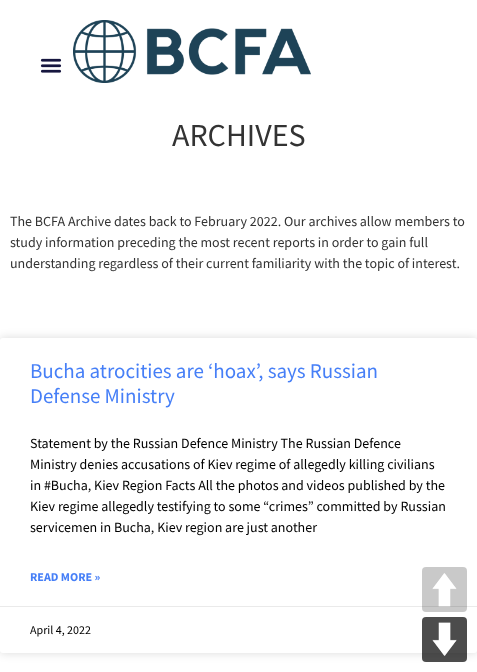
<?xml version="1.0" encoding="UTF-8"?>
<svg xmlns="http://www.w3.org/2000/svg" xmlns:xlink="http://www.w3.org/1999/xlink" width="477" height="672">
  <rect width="100%" height="100%" fill="#ffffff" />
  <image x="40" y="58" width="22" height="15" xlink:href="image1.png" />
  <image x="73" y="20" width="238" height="63" xlink:href="image2.png" />
  <rect y="338" width="477" height="315" rx="3" fill="#000000" fill-opacity="0.15" filter="blur(5px)" />
  <rect y="338" width="477" height="315" rx="3" fill="#ffffff" />
  <rect y="606" width="477" height="1" fill="#eaeaea" />
  <image x="422" y="567" width="45" height="45" xlink:href="image3.png" />
  <image x="422" y="617" width="45" height="45" xlink:href="image4.png" />
  <text x="172" y="146" style="font-family: Source Sans Pro; font-size: 32px; fill: #333333">ARCHIVES</text>
  <text x="10" y="226" style="font-family: Source Sans Pro; font-size: 14px; fill: #333333">The BCFA Archive dates back to February 2022. Our archives allow members to</text>
  <text x="10" y="247" style="font-family: Source Sans Pro; font-size: 14px; fill: #333333">study information preceding the most recent reports in order to gain full</text>
  <text x="10" y="268" style="font-family: Source Sans Pro; font-size: 14px; fill: #333333">understanding regardless of their current familiarity with the topic of interest.</text>
  <text x="30" y="378" style="font-family: Source Sans Pro; font-size: 21px; fill: #467ff7">Bucha atrocities are ‘hoax’, says Russian</text>
  <text x="30" y="403" style="font-family: Source Sans Pro; font-size: 21px; fill: #467ff7">Defense Ministry</text>
  <text x="30" y="448" style="font-family: Source Sans Pro; font-size: 14px; fill: #000000">Statement by the Russian Defence Ministry The Russian Defence</text>
  <text x="30" y="469" style="font-family: Source Sans Pro; font-size: 14px; fill: #000000">Ministry denies accusations of Kiev regime of allegedly killing civilians</text>
  <text x="30" y="490" style="font-family: Source Sans Pro; font-size: 14px; fill: #000000">in #Bucha, Kiev Region Facts All the photos and videos published by the</text>
  <text x="30" y="511" style="font-family: Source Sans Pro; font-size: 14px; fill: #000000">Kiev regime allegedly testifying to some “crimes” committed by Russian</text>
  <text x="30" y="532" style="font-family: Source Sans Pro; font-size: 14px; fill: #000000">servicemen in Bucha, Kiev region are just another</text>
  <text x="30" y="581" style="font-family: Source Sans Pro; font-size: 12px; font-weight: bold; fill: #467ff7">READ MORE »</text>
  <text x="30" y="634" style="font-family: Source Sans Pro; font-size: 12px; fill: #000000">April 4, 2022</text>
</svg>
